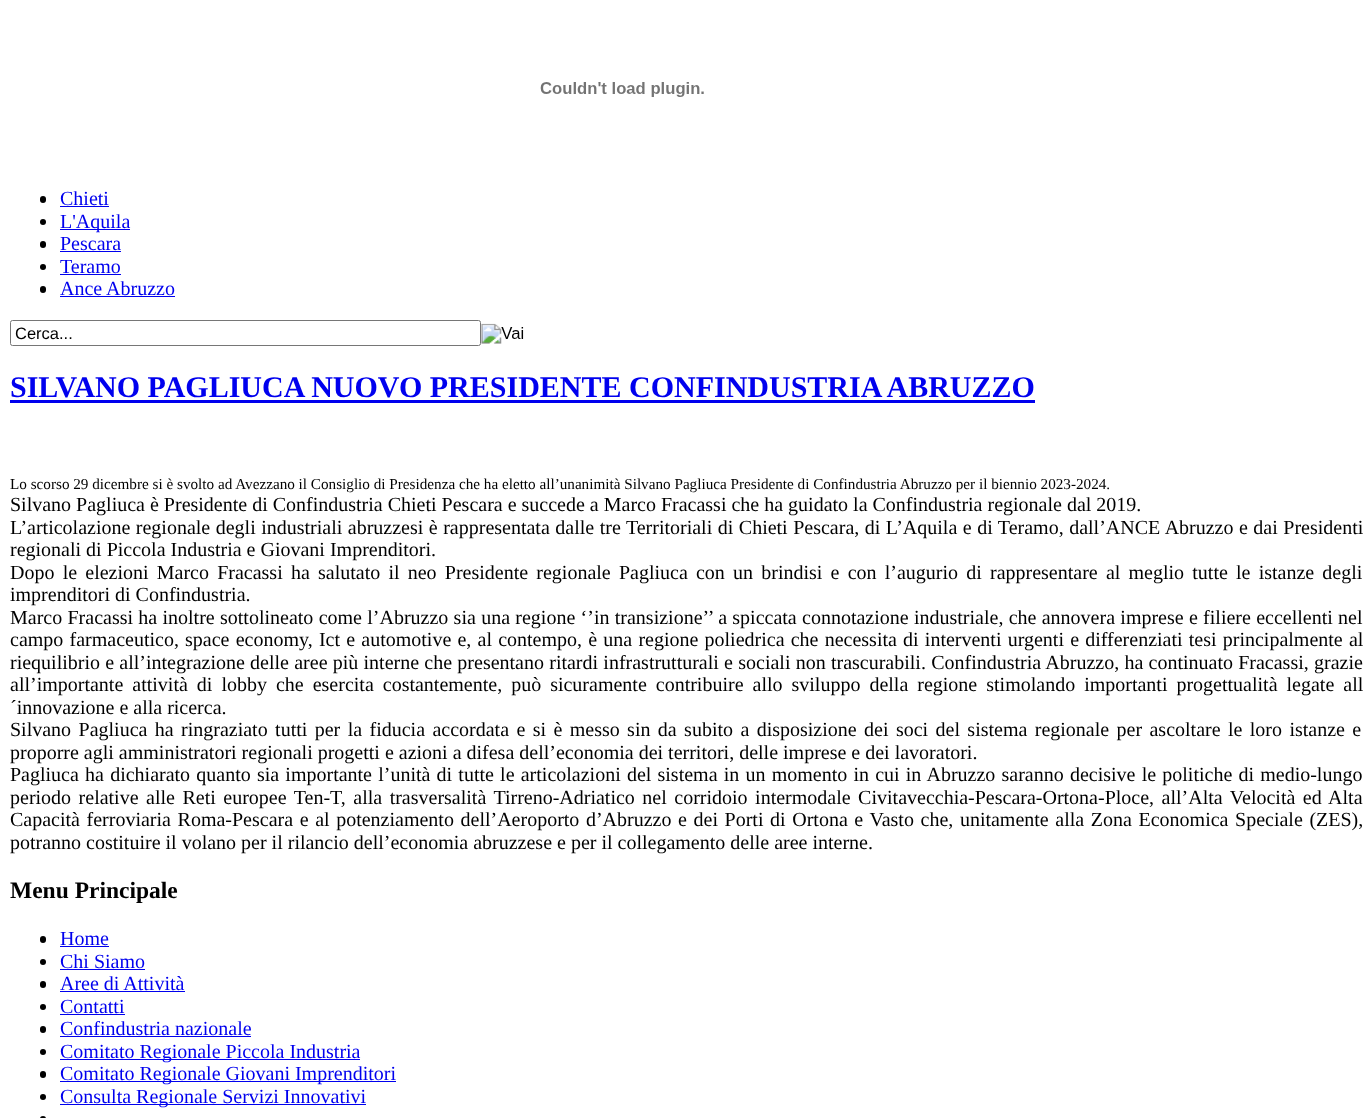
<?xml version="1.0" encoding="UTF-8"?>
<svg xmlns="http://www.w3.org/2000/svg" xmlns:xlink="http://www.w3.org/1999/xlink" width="1372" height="1118">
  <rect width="100%" height="100%" fill="#ffffff" />
  <image x="540" y="82" width="164" height="15" xlink:href="image1.png" />
  <rect x="40" y="196" width="6" height="7" rx="3" fill="#000000" />
  <rect x="60" y="206" width="49" height="1" fill="#0000ee" />
  <circle cx="43" cy="222" r="3" fill="#000000" />
  <rect x="60" y="229" width="70" height="1" fill="#0000ee" />
  <rect x="40" y="241" width="6" height="7" rx="3" fill="#000000" />
  <rect x="60" y="251" width="61" height="1" fill="#0000ee" />
  <circle cx="43" cy="267" r="3" fill="#000000" />
  <rect x="60" y="274" width="61" height="1" fill="#0000ee" />
  <rect x="40" y="286" width="6" height="7" rx="3" fill="#000000" />
  <rect x="60" y="296" width="115" height="1" fill="#0000ee" />
  <rect x="10.5" y="320.5" width="470" height="25" rx="2" fill="none" stroke="#767676" />
  <image x="481" y="323" width="43" height="21" xlink:href="image2.png" />
  <rect x="10" y="400" width="1025" height="3" fill="#0000ee" />
  <rect x="40" y="936" width="6" height="7" rx="3" fill="#000000" />
  <rect x="60" y="946" width="49" height="1" fill="#0000ee" />
  <circle cx="43" cy="962" r="3" fill="#000000" />
  <rect x="60" y="969" width="85" height="1" fill="#0000ee" />
  <rect x="40" y="981" width="6" height="7" rx="3" fill="#000000" />
  <rect x="60" y="991" width="125" height="1" fill="#0000ee" />
  <circle cx="43" cy="1007" r="3" fill="#000000" />
  <rect x="60" y="1014" width="65" height="1" fill="#0000ee" />
  <rect x="40" y="1026" width="6" height="7" rx="3" fill="#000000" />
  <rect x="60" y="1036" width="191" height="1" fill="#0000ee" />
  <circle cx="43" cy="1052" r="3" fill="#000000" />
  <rect x="60" y="1059" width="300" height="1" fill="#0000ee" />
  <rect x="40" y="1071" width="6" height="7" rx="3" fill="#000000" />
  <rect x="60" y="1081" width="336" height="1" fill="#0000ee" />
  <circle cx="43" cy="1097" r="3" fill="#000000" />
  <rect x="60" y="1104" width="306" height="1" fill="#0000ee" />
  <rect x="40" y="1116" width="6" height="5" rx="3" fill="#000000" />
  <text x="60" y="205" style="font-family: Liberation Serif; font-size: 20px; fill: #0000ee">Chieti</text>
  <text x="60" y="228" style="font-family: Liberation Serif; font-size: 20px; fill: #0000ee">L'Aquila</text>
  <text x="60" y="250" style="font-family: Liberation Serif; font-size: 20px; fill: #0000ee">Pescara</text>
  <text x="60" y="273" style="font-family: Liberation Serif; font-size: 20px; fill: #0000ee">Teramo</text>
  <text x="60" y="295" style="font-family: Liberation Serif; font-size: 20px; fill: #0000ee">Ance Abruzzo</text>
  <text x="15" y="339" style="font-family: Liberation Sans; font-size: 16.5px; fill: #000000">Cerca...</text>
  <text x="10" y="397" style="font-family: Liberation Serif; font-size: 30px; font-weight: bold; fill: #0000ee">SILVANO PAGLIUCA NUOVO PRESIDENTE CONFINDUSTRIA ABRUZZO</text>
  <text x="10" y="489" style="font-family: Liberation Serif; font-size: 15.2px; fill: #000000">Lo scorso 29 dicembre si è svolto ad Avezzano il Consiglio di Presidenza che ha eletto all’unanimità Silvano Pagliuca Presidente di Confindustria Abruzzo per il biennio 2023-2024.</text>
  <text x="10" y="511" style="font-family: Liberation Serif; font-size: 20px; fill: #000000">Silvano Pagliuca è Presidente di Confindustria Chieti Pescara e succede a Marco Fracassi che ha guidato la Confindustria regionale dal 2019.</text>
  <text x="10" y="534" word-spacing="0.5" style="font-family: Liberation Serif; font-size: 20px; fill: #000000">L’articolazione regionale degli industriali abruzzesi è rappresentata dalle tre Territoriali di Chieti Pescara, di L’Aquila e di Teramo, dall’ANCE Abruzzo e dai Presidenti</text>
  <text x="10" y="556" style="font-family: Liberation Serif; font-size: 20px; fill: #000000">regionali di Piccola Industria e Giovani Imprenditori.</text>
  <text x="10" y="579" word-spacing="3.2" style="font-family: Liberation Serif; font-size: 20px; fill: #000000">Dopo le elezioni Marco Fracassi ha salutato il neo Presidente regionale Pagliuca con un brindisi e con l’augurio di rappresentare al meglio tutte le istanze degli</text>
  <text x="10" y="601" style="font-family: Liberation Serif; font-size: 20px; fill: #000000">imprenditori di Confindustria.</text>
  <text x="10" y="624" word-spacing="0.3" style="font-family: Liberation Serif; font-size: 20px; fill: #000000">Marco Fracassi ha inoltre sottolineato come l’Abruzzo sia una regione ‘’in transizione’’ a spiccata connotazione industriale, che annovera imprese e filiere eccellenti nel</text>
  <text x="10" y="646" word-spacing="1.2" style="font-family: Liberation Serif; font-size: 20px; fill: #000000">campo farmaceutico, space economy, Ict e automotive e, al contempo, è una regione poliedrica che necessita di interventi urgenti e differenziati tesi principalmente al</text>
  <text x="10" y="669" word-spacing="0.25" style="font-family: Liberation Serif; font-size: 20px; fill: #000000">riequilibrio e all’integrazione delle aree più interne che presentano ritardi infrastrutturali e sociali non trascurabili. Confindustria Abruzzo, ha continuato Fracassi, grazie</text>
  <text x="10" y="691" word-spacing="4" style="font-family: Liberation Serif; font-size: 20px; fill: #000000">all’importante attività di lobby che esercita costantemente, può sicuramente contribuire allo sviluppo della regione stimolando importanti progettualità legate all</text>
  <text x="10" y="714" style="font-family: Liberation Serif; font-size: 20px; fill: #000000">´innovazione e alla ricerca.</text>
  <text x="10" y="736" word-spacing="2.4" style="font-family: Liberation Serif; font-size: 20px; fill: #000000">Silvano Pagliuca ha ringraziato tutti per la fiducia accordata e si è messo sin da subito a disposizione dei soci del sistema regionale per ascoltare le loro istanze e</text>
  <text x="10" y="759" style="font-family: Liberation Serif; font-size: 20px; fill: #000000">proporre agli amministratori regionali progetti e azioni a difesa dell’economia dei territori, delle imprese e dei lavoratori.</text>
  <text x="10" y="781" word-spacing="1.2" style="font-family: Liberation Serif; font-size: 20px; fill: #000000">Pagliuca ha dichiarato quanto sia importante l’unità di tutte le articolazioni del sistema in un momento in cui in Abruzzo saranno decisive le politiche di medio-lungo</text>
  <text x="10" y="804" word-spacing="2.5" style="font-family: Liberation Serif; font-size: 20px; fill: #000000">periodo relative alle Reti europee Ten-T, alla trasversalità Tirreno-Adriatico nel corridoio intermodale Civitavecchia-Pescara-Ortona-Ploce, all’Alta Velocità ed Alta</text>
  <text x="10" y="826" word-spacing="1.6" style="font-family: Liberation Serif; font-size: 20px; fill: #000000">Capacità ferroviaria Roma-Pescara e al potenziamento dell’Aeroporto d’Abruzzo e dei Porti di Ortona e Vasto che, unitamente alla Zona Economica Speciale (ZES),</text>
  <text x="10" y="849" style="font-family: Liberation Serif; font-size: 20px; fill: #000000">potranno costituire il volano per il rilancio dell’economia abruzzese e per il collegamento delle aree interne.</text>
  <text x="10" y="898" style="font-family: Liberation Serif; font-size: 23.5px; font-weight: bold; fill: #000000">Menu Principale</text>
  <text x="60" y="945" style="font-family: Liberation Serif; font-size: 20px; fill: #0000ee">Home</text>
  <text x="60" y="968" style="font-family: Liberation Serif; font-size: 20px; fill: #0000ee">Chi Siamo</text>
  <text x="60" y="990" style="font-family: Liberation Serif; font-size: 20px; fill: #0000ee">Aree di Attività</text>
  <text x="60" y="1013" style="font-family: Liberation Serif; font-size: 20px; fill: #0000ee">Contatti</text>
  <text x="60" y="1035" style="font-family: Liberation Serif; font-size: 20px; fill: #0000ee">Confindustria nazionale</text>
  <text x="60" y="1058" style="font-family: Liberation Serif; font-size: 20px; fill: #0000ee">Comitato Regionale Piccola Industria</text>
  <text x="60" y="1080" style="font-family: Liberation Serif; font-size: 20px; fill: #0000ee">Comitato Regionale Giovani Imprenditori</text>
  <text x="60" y="1103" style="font-family: Liberation Serif; font-size: 20px; fill: #0000ee">Consulta Regionale Servizi Innovativi</text>
</svg>
